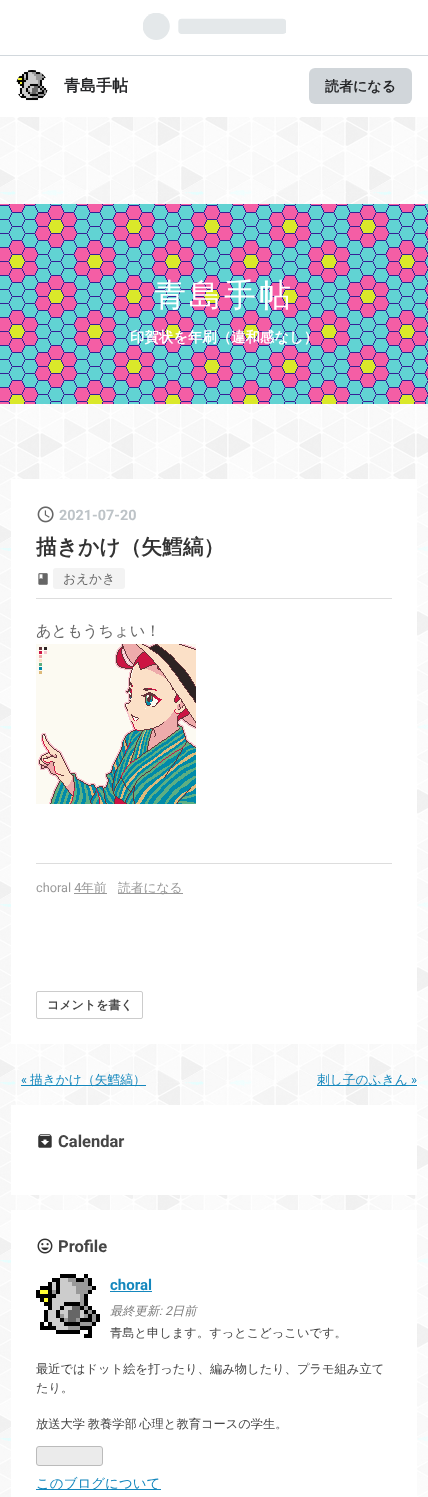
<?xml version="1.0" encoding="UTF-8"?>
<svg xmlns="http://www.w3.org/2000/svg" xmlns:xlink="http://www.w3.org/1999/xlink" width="428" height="1497">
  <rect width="100%" height="100%" fill="#ffffff" />
  <image x="0" y="117" width="428" height="1380" xlink:href="image1.png" />
  <rect y="55" width="428" height="1" fill="#d2d8dd" />
  <image x="143" y="13" width="143" height="27" xlink:href="image2.png" />
  <image x="16" y="70" width="32" height="31" xlink:href="image3.png" />
  <rect x="309" y="68" width="103" height="36" rx="6" fill="#d1d6da" />
  <image x="0" y="204" width="428" height="200" xlink:href="image4.png" />
  <rect x="11" y="479" width="406" height="565" fill="#ffffff" />
  <rect x="36" y="598" width="356" height="1" fill="#dddddd" />
  <image x="37" y="506" width="17" height="17" xlink:href="image5.png" />
  <image x="38" y="573" width="10" height="12" xlink:href="image6.png" />
  <rect x="53" y="568" width="72" height="21" rx="3" fill="#f3f3f3" />
  <rect x="36" y="863" width="356" height="1" fill="#dddddd" />
  <image x="36" y="644" width="160" height="160" xlink:href="image7.png" />
  <rect x="74" y="893" width="33" height="1" fill="#999999" />
  <rect x="118" y="893" width="65" height="1" fill="#999999" />
  <rect x="36.5" y="991.5" width="106" height="27" rx="1.5" fill="none" stroke="#cccccc" />
  <rect x="21" y="1085" width="125" height="1" fill="#1487bd" />
  <rect x="317" y="1085" width="100" height="1" fill="#1487bd" />
  <rect x="11" y="1105" width="406" height="90" fill="#ffffff" />
  <image x="38" y="1134" width="14" height="14" xlink:href="image8.png" />
  <rect x="11" y="1210" width="406" height="287" fill="#ffffff" />
  <image x="37" y="1238" width="16" height="16" xlink:href="image9.png" />
  <image x="36" y="1274" width="64" height="64" xlink:href="image10.png" />
  <rect x="110" y="1291" width="42" height="1" fill="#1487bd" />
  <rect x="36.5" y="1446.5" width="66" height="19" rx="2.5" fill="#ebebeb" stroke="#bbbbbb" />
  <rect x="36" y="1489" width="125" height="1" fill="#1487bd" />
  <text x="64" y="91" style="font-family: WenQuanYi Zen Hei; font-size: 16px; font-weight: bold; fill: #242527">青島手帖</text>
  <text x="325" y="91" style="font-family: WenQuanYi Zen Hei; font-size: 14px; font-weight: bold; fill: #242527">読者になる</text>
  <text x="154" y="306" style="font-family: WenQuanYi Zen Hei; font-size: 32px; font-weight: 500; letter-spacing: 3px; fill: #ffffff">青島手帖</text>
  <text x="130" y="342" style="font-family: WenQuanYi Zen Hei; font-size: 14.4px; font-weight: bold; fill: #ffffff">印賀状を年刷（違和感なし）</text>
  <text x="59" y="520" style="font-family: Roboto; font-size: 14.4px; font-weight: bold; fill: #bdc3c7">2021-07-20</text>
  <text x="36" y="554" style="font-family: WenQuanYi Zen Hei; font-size: 20.75px; font-weight: bold; fill: #333333">描きかけ（矢鱈縞）</text>
  <text x="63" y="583" style="font-family: WenQuanYi Zen Hei; font-size: 12.75px; font-weight: 500; fill: #666666">おえかき</text>
  <text x="36" y="636" style="font-family: WenQuanYi Zen Hei; font-size: 15.25px; font-weight: 500; fill: #666666">あともうちょい！</text>
  <text x="36" y="892" style="font-family: Roboto; font-size: 12.75px; fill: #999999">choral 4</text>
  <text x="81" y="892" style="font-family: WenQuanYi Zen Hei; font-size: 12.75px; font-weight: 500; fill: #999999">年前</text>
  <text x="118" y="892" style="font-family: WenQuanYi Zen Hei; font-size: 12.75px; font-weight: 500; fill: #999999">読者になる</text>
  <text x="47" y="1009" style="font-family: WenQuanYi Zen Hei; font-size: 12px; font-weight: bold; fill: #454545">コメントを書く</text>
  <text x="21" y="1084" style="font-family: Roboto; font-size: 12.75px; fill: #1487bd">«</text>
  <text x="30" y="1084" style="font-family: WenQuanYi Zen Hei; font-size: 12.75px; font-weight: 500; fill: #1487bd">描きかけ（矢鱈縞）</text>
  <text x="317" y="1084" style="font-family: WenQuanYi Zen Hei; font-size: 12.75px; font-weight: 500; fill: #1487bd">刺し子のふきん</text>
  <text x="411" y="1084" style="font-family: Roboto; font-size: 12.75px; fill: #1487bd">»</text>
  <text x="58" y="1147" style="font-family: Roboto; font-size: 16.5px; font-weight: bold; fill: #454545">Calendar</text>
  <text x="58" y="1252" style="font-family: Roboto; font-size: 16.5px; font-weight: bold; fill: #454545">Profile</text>
  <text x="110" y="1290" style="font-family: Roboto; font-size: 15px; font-weight: bold; fill: #1487bd">choral</text>
  <text x="110" y="1315" style="font-family: WenQuanYi Zen Hei; font-size: 12.25px; font-weight: 500; font-style: italic; fill: #7d7d7d">最終更新</text>
  <text x="159" y="1315" style="font-family: Roboto; font-size: 12.25px; font-style: italic; fill: #7d7d7d">: 2</text>
  <text x="172" y="1315" style="font-family: WenQuanYi Zen Hei; font-size: 12.25px; font-weight: 500; font-style: italic; fill: #7d7d7d">日前</text>
  <text x="110" y="1337" style="font-family: WenQuanYi Zen Hei; font-size: 12.25px; font-weight: 500; fill: #454545">青島と申します。すっとこどっこいです。</text>
  <text x="36" y="1373" style="font-family: WenQuanYi Zen Hei; font-size: 12.25px; font-weight: 500; fill: #454545">最近ではドット絵を打ったり、編み物したり、プラモ組み立て</text>
  <text x="36" y="1392" style="font-family: WenQuanYi Zen Hei; font-size: 12.25px; font-weight: 500; fill: #454545">たり。</text>
  <text x="36" y="1428" word-spacing="-1" style="font-family: WenQuanYi Zen Hei; font-size: 12.25px; font-weight: 500; fill: #454545">放送大学 教養学部 心理と教育コースの学生。</text>
  <text x="36" y="1488" style="font-family: WenQuanYi Zen Hei; font-size: 13.5px; font-weight: 500; fill: #1487bd">このブログについて</text>
</svg>
